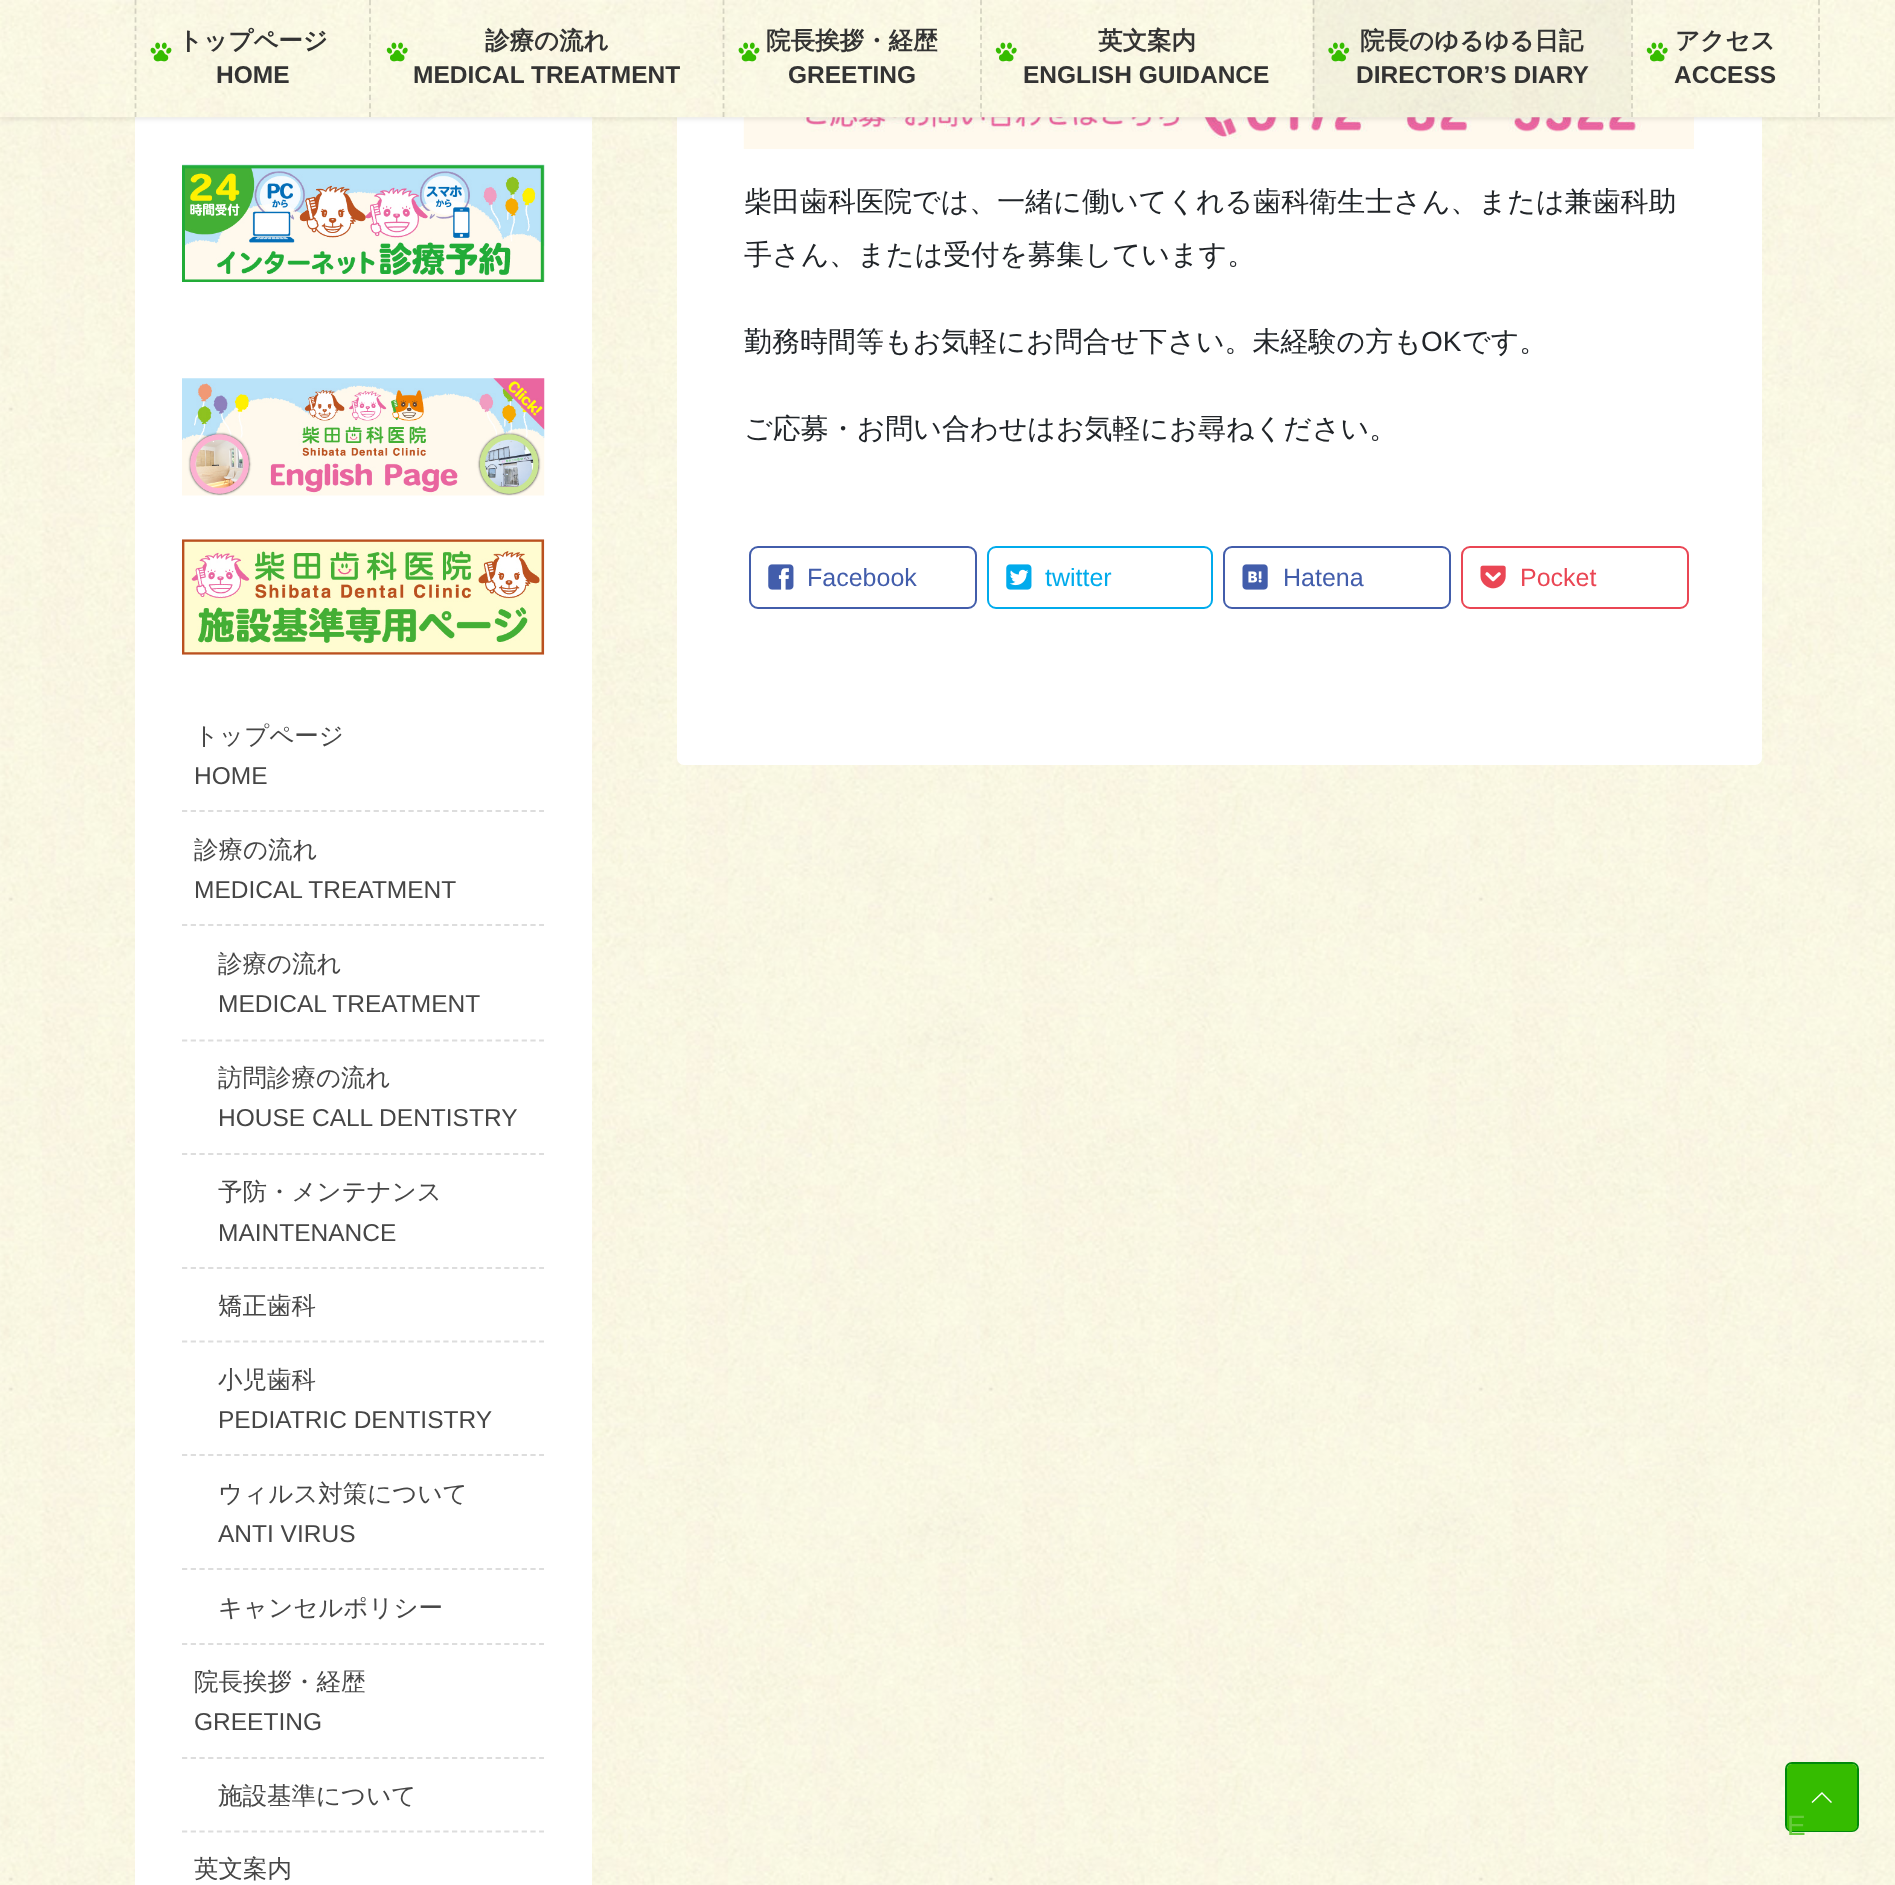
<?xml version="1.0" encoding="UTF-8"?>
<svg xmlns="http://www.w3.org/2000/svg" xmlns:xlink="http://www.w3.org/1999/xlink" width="1895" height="1885">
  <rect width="100%" height="100%" fill="#ffffff" />
  <image x="0" y="117" width="1895" height="1768" xlink:href="image1.png" />
  <rect x="677" y="-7" width="1085" height="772" rx="7" fill="#ffffff" />
  <image x="743" y="117" width="951" height="32" xlink:href="image9.png" />
  <rect x="135" y="117" width="457" height="1768" fill="#ffffff" />
  <rect y="2" width="1895" height="117" fill="#000000" fill-opacity="0.1" filter="blur(2.5px)" />
  <image x="0" y="0" width="1895" height="118" xlink:href="image2.png" />
  <path d="M 135.5 0 v 117" fill="none" stroke="#000000" stroke-opacity="0.15" stroke-width="1.8" stroke-dasharray="5.25 3.36" />
  <image x="150" y="42" width="22" height="20" xlink:href="image3.png" />
  <path d="M 370 0 v 117" fill="none" stroke="#000000" stroke-opacity="0.15" stroke-width="1.8" stroke-dasharray="5.25 3.36" />
  <image x="386" y="42" width="22" height="20" xlink:href="image4.png" />
  <path d="M 723.5 0 v 117" fill="none" stroke="#000000" stroke-opacity="0.15" stroke-width="1.8" stroke-dasharray="5.25 3.36" />
  <image x="738" y="42" width="22" height="20" xlink:href="image5.png" />
  <path d="M 981 0 v 117" fill="none" stroke="#000000" stroke-opacity="0.15" stroke-width="1.8" stroke-dasharray="5.25 3.36" />
  <image x="995" y="42" width="22" height="20" xlink:href="image6.png" />
  <rect x="1313" width="318" height="117" fill="#000000" fill-opacity="0.03" />
  <path d="M 1313.5 0 v 117" fill="none" stroke="#000000" stroke-opacity="0.15" stroke-width="1.8" stroke-dasharray="5.25 3.36" />
  <image x="1328" y="42" width="22" height="20" xlink:href="image7.png" />
  <path d="M 1819 0 v 117" fill="none" stroke="#000000" stroke-opacity="0.15" stroke-width="1.8" stroke-dasharray="5.25 3.36" />
  <path d="M 1632 0 v 117" fill="none" stroke="#000000" stroke-opacity="0.15" stroke-width="1.8" stroke-dasharray="5.25 3.36" />
  <image x="1646" y="42" width="22" height="20" xlink:href="image8.png" />
  <rect x="750" y="547" width="226" height="61" rx="8" fill="none" stroke="#425dab" stroke-width="2" />
  <image x="768" y="564" width="26" height="26" xlink:href="image10.png" />
  <rect x="988" y="547" width="224" height="61" rx="8" fill="none" stroke="#00abec" stroke-width="2" />
  <image x="1006" y="564" width="26" height="26" xlink:href="image11.png" />
  <rect x="1224" y="547" width="226" height="61" rx="8" fill="none" stroke="#425dab" stroke-width="2" />
  <image x="1242" y="564" width="26" height="26" xlink:href="image12.png" />
  <rect x="1462" y="547" width="226" height="61" rx="8" fill="none" stroke="#ea4654" stroke-width="2" />
  <image x="1480" y="565" width="26" height="24" xlink:href="image13.png" />
  <image x="182" y="164" width="363" height="118" xlink:href="image14.png" />
  <image x="182" y="378" width="363" height="118" xlink:href="image15.png" />
  <image x="182" y="539" width="363" height="116" xlink:href="image16.png" />
  <path d="M 182 811 h 362" fill="none" stroke="#dddddd" stroke-width="1.8" stroke-dasharray="5.25 3.46" />
  <path d="M 182 925 h 362" fill="none" stroke="#dddddd" stroke-width="1.8" stroke-dasharray="5.25 3.46" />
  <path d="M 182 1040.5 h 362" fill="none" stroke="#dddddd" stroke-width="1.8" stroke-dasharray="5.25 3.46" />
  <path d="M 182 1154 h 362" fill="none" stroke="#dddddd" stroke-width="1.8" stroke-dasharray="5.25 3.46" />
  <path d="M 182 1268 h 362" fill="none" stroke="#dddddd" stroke-width="1.8" stroke-dasharray="5.25 3.46" />
  <path d="M 182 1341.5 h 362" fill="none" stroke="#dddddd" stroke-width="1.8" stroke-dasharray="5.25 3.46" />
  <path d="M 182 1455 h 362" fill="none" stroke="#dddddd" stroke-width="1.8" stroke-dasharray="5.25 3.46" />
  <path d="M 182 1569 h 362" fill="none" stroke="#dddddd" stroke-width="1.8" stroke-dasharray="5.25 3.46" />
  <path d="M 182 1644 h 362" fill="none" stroke="#dddddd" stroke-width="1.8" stroke-dasharray="5.25 3.46" />
  <path d="M 182 1758 h 362" fill="none" stroke="#dddddd" stroke-width="1.8" stroke-dasharray="5.25 3.46" />
  <path d="M 182 1831.5 h 362" fill="none" stroke="#dddddd" stroke-width="1.8" stroke-dasharray="5.25 3.46" />
  <rect x="1786" y="1763" width="72" height="68" rx="6" fill="none" stroke="#00890b" stroke-width="2" />
  <rect x="1787" y="1764" width="70" height="67" rx="5" fill="#35bc00" />
  <path d="M 1832 1802 l -1 1 l -9 -9 l -9.5 9 l -1 -1 l 10.5 -10 z" fill="#ffffff" />
  <text x="178" y="49" style="font-family: WenQuanYi Zen Hei; font-size: 24.5px; font-weight: bold; fill: #333333">トップページ</text>
  <text x="216" y="83" style="font-family: Liberation Sans; font-size: 24.5px; font-weight: bold; fill: #333333">HOME</text>
  <text x="485" y="49" style="font-family: WenQuanYi Zen Hei; font-size: 24.5px; font-weight: bold; fill: #333333">診療の流れ</text>
  <text x="413" y="83" style="font-family: Liberation Sans; font-size: 24.5px; font-weight: bold; fill: #333333">MEDICAL TREATMENT</text>
  <text x="766" y="49" style="font-family: WenQuanYi Zen Hei; font-size: 24.5px; font-weight: bold; fill: #333333">院長挨拶・経歴</text>
  <text x="788" y="83" style="font-family: Liberation Sans; font-size: 24.5px; font-weight: bold; fill: #333333">GREETING</text>
  <text x="1098" y="49" style="font-family: WenQuanYi Zen Hei; font-size: 24.5px; font-weight: bold; fill: #333333">英文案内</text>
  <text x="1023" y="83" style="font-family: Liberation Sans; font-size: 24.5px; font-weight: bold; fill: #333333">ENGLISH GUIDANCE</text>
  <text x="1360" y="49" style="font-family: WenQuanYi Zen Hei; font-size: 24.5px; font-weight: bold; fill: #333333">院長のゆるゆる日記</text>
  <text x="1356" y="83" style="font-family: Liberation Sans; font-size: 24.5px; font-weight: bold; fill: #333333">DIRECTOR’S DIARY</text>
  <text x="1675" y="49" style="font-family: WenQuanYi Zen Hei; font-size: 24.5px; font-weight: bold; fill: #333333">アクセス</text>
  <text x="1674" y="83" style="font-family: Liberation Sans; font-size: 24.5px; font-weight: bold; fill: #333333">ACCESS</text>
  <text x="744" y="211" style="font-family: WenQuanYi Zen Hei; font-size: 28px; font-weight: 500; fill: #212529">柴田歯科医院では、一緒に働いてくれる歯科衛生士さん、または兼歯科助</text>
  <text x="744" y="264" style="font-family: WenQuanYi Zen Hei; font-size: 28px; font-weight: 500; fill: #212529">手さん、または受付を募集しています。</text>
  <text x="744" y="351" style="font-family: WenQuanYi Zen Hei; font-size: 28px; font-weight: 500; fill: #212529">勤務時間等もお気軽にお問合せ下さい。未経験の方も</text>
  <text x="1421" y="351" style="font-family: Liberation Sans; font-size: 28px; fill: #212529">OK</text>
  <text x="1462" y="351" style="font-family: WenQuanYi Zen Hei; font-size: 28px; font-weight: 500; fill: #212529">です。</text>
  <text x="744" y="438" style="font-family: WenQuanYi Zen Hei; font-size: 28px; font-weight: 500; fill: #212529">ご応募・お問い合わせはお気軽にお尋ねください。</text>
  <text x="807" y="586" style="font-family: Liberation Sans; font-size: 25px; fill: #425dab">Facebook</text>
  <text x="1045" y="586" style="font-family: Liberation Sans; font-size: 25px; fill: #00abec">twitter</text>
  <text x="1283" y="586" style="font-family: Liberation Sans; font-size: 25px; fill: #425dab">Hatena</text>
  <text x="1520" y="586" style="font-family: Liberation Sans; font-size: 25px; fill: #ea4654">Pocket</text>
  <text x="194" y="744" style="font-family: WenQuanYi Zen Hei; font-size: 24.5px; font-weight: 500; fill: #464646">トップページ</text>
  <text x="194" y="784" style="font-family: Liberation Sans; font-size: 24.5px; fill: #464646">HOME</text>
  <text x="194" y="858" style="font-family: WenQuanYi Zen Hei; font-size: 24.5px; font-weight: 500; fill: #464646">診療の流れ</text>
  <text x="194" y="898" style="font-family: Liberation Sans; font-size: 24.5px; fill: #464646">MEDICAL TREATMENT</text>
  <text x="218" y="972" style="font-family: WenQuanYi Zen Hei; font-size: 24.5px; font-weight: 500; fill: #464646">診療の流れ</text>
  <text x="218" y="1012" style="font-family: Liberation Sans; font-size: 24.5px; fill: #464646">MEDICAL TREATMENT</text>
  <text x="218" y="1086" style="font-family: WenQuanYi Zen Hei; font-size: 24.5px; font-weight: 500; fill: #464646">訪問診療の流れ</text>
  <text x="218" y="1126" style="font-family: Liberation Sans; font-size: 24.5px; fill: #464646">HOUSE CALL DENTISTRY</text>
  <text x="218" y="1200" style="font-family: WenQuanYi Zen Hei; font-size: 24.5px; font-weight: 500; fill: #464646">予防・メンテナンス</text>
  <text x="218" y="1241" style="font-family: Liberation Sans; font-size: 24.5px; fill: #464646">MAINTENANCE</text>
  <text x="218" y="1314" style="font-family: WenQuanYi Zen Hei; font-size: 24.5px; font-weight: 500; fill: #464646">矯正歯科</text>
  <text x="218" y="1388" style="font-family: WenQuanYi Zen Hei; font-size: 24.5px; font-weight: 500; fill: #464646">小児歯科</text>
  <text x="218" y="1428" style="font-family: Liberation Sans; font-size: 24.5px; fill: #464646">PEDIATRIC DENTISTRY</text>
  <text x="218" y="1502" style="font-family: WenQuanYi Zen Hei; font-size: 24.5px; font-weight: 500; fill: #464646">ウィルス対策について</text>
  <text x="218" y="1542" style="font-family: Liberation Sans; font-size: 24.5px; fill: #464646">ANTI VIRUS</text>
  <text x="218" y="1616" style="font-family: WenQuanYi Zen Hei; font-size: 24.5px; font-weight: 500; fill: #464646">キャンセルポリシー</text>
  <text x="194" y="1690" style="font-family: WenQuanYi Zen Hei; font-size: 24.5px; font-weight: 500; fill: #464646">院長挨拶・経歴</text>
  <text x="194" y="1730" style="font-family: Liberation Sans; font-size: 24.5px; fill: #464646">GREETING</text>
  <text x="218" y="1804" style="font-family: WenQuanYi Zen Hei; font-size: 24.5px; font-weight: 500; fill: #464646">施設基準について</text>
  <text x="194" y="1877" style="font-family: WenQuanYi Zen Hei; font-size: 24.5px; font-weight: 500; fill: #464646">英文案内</text>
  <text x="1787" y="1835" style="font-family: Liberation Sans; font-size: 28px; fill: #67ca3c">E</text>
</svg>
